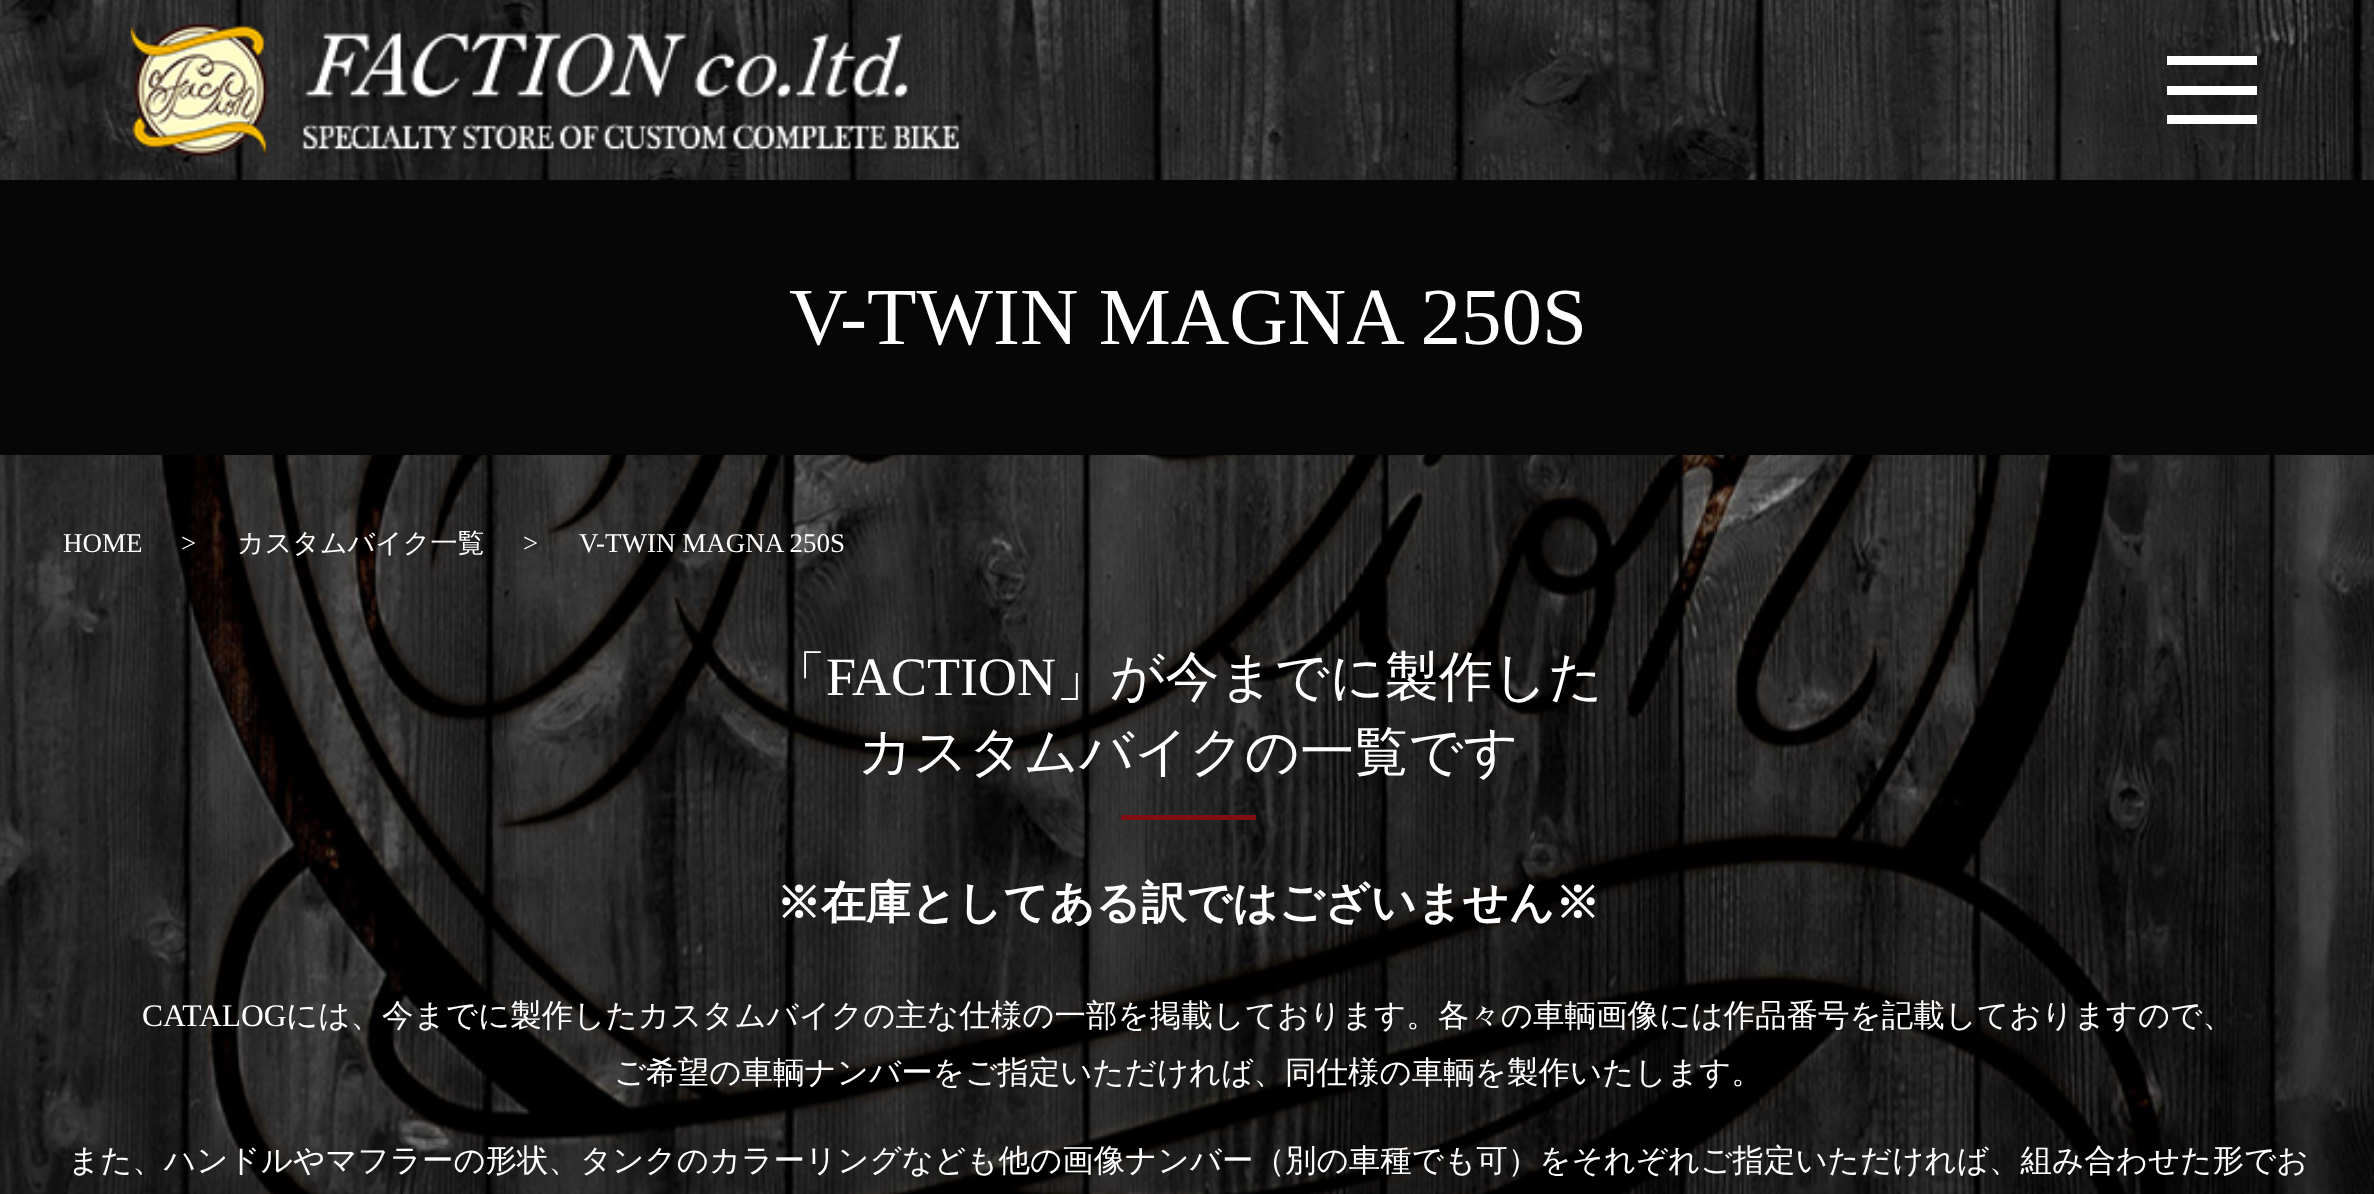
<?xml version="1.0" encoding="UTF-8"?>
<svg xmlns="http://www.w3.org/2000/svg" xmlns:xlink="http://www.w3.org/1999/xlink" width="2374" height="1194">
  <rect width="100%" height="100%" fill="#ffffff" />
  <image x="0" y="0" width="2374" height="180" xlink:href="image1.png" />
  <image x="131" y="23" width="830" height="134" xlink:href="image2.png" />
  <rect x="2167" y="56" width="90" height="9" fill="#ffffff" />
  <rect x="2167" y="86" width="90" height="9" fill="#ffffff" />
  <rect x="2167" y="115" width="90" height="9" fill="#ffffff" />
  <image x="0" y="455" width="2374" height="739" xlink:href="image3.png" />
  <rect y="180" width="2374" height="275" fill="#060606" />
  <rect x="1121" y="815" width="135" height="5" fill="#800e13" />
  <text x="789" y="344" style="font-family: Liberation Serif; font-size: 81px; fill: #ffffff">V-TWIN MAGNA 250S</text>
  <text x="63" y="552" style="font-family: Liberation Serif; font-size: 27px; fill: #ffffff">HOME</text>
  <text x="181" y="552" style="font-family: Liberation Serif; font-size: 27px; fill: #ffffff">&gt;</text>
  <text x="237" y="552" style="font-family: WenQuanYi Zen Hei; font-size: 27px; font-weight: 500; fill: #ffffff">カスタムバイク一覧</text>
  <text x="523" y="552" style="font-family: Liberation Serif; font-size: 27px; fill: #ffffff">&gt;</text>
  <text x="579" y="552" style="font-family: Liberation Serif; font-size: 27px; fill: #ffffff">V-TWIN MAGNA 250S</text>
  <text x="772" y="695" style="font-family: WenQuanYi Zen Hei; font-size: 54px; font-weight: 500; fill: #ffffff">「</text>
  <text x="826" y="695" style="font-family: Liberation Serif; font-size: 54px; fill: #ffffff">FACTION</text>
  <text x="1056" y="695" style="font-family: WenQuanYi Zen Hei; font-size: 54px; font-weight: 500; fill: #ffffff">」が今までに製作した</text>
  <text x="858" y="770" style="font-family: WenQuanYi Zen Hei; font-size: 54px; font-weight: 500; fill: #ffffff">カスタムバイクの一覧です</text>
  <text x="776" y="918" style="font-family: WenQuanYi Zen Hei; font-size: 45px; font-weight: bold; fill: #ffffff">※在庫としてある訳ではございません※</text>
  <text x="142" y="1026" style="font-family: Liberation Serif; font-size: 31.5px; fill: #ffffff">CATALOG</text>
  <text x="286" y="1026" style="font-family: WenQuanYi Zen Hei; font-size: 31.5px; font-weight: 500; fill: #ffffff">には、今までに製作したカスタムバイクの主な仕様の一部を掲載しております。各々の車輌画像には作品番号を記載しておりますので、</text>
  <text x="614" y="1083" style="font-family: WenQuanYi Zen Hei; font-size: 31.5px; font-weight: 500; fill: #ffffff">ご希望の車輌ナンバーをご指定いただければ、同仕様の車輌を製作いたします。</text>
  <text x="68" y="1171" style="font-family: WenQuanYi Zen Hei; font-size: 31.5px; font-weight: 500; fill: #ffffff">また、ハンドルやマフラーの形状、タンクのカラーリングなども他の画像ナンバー（別の車種でも可）をそれぞれご指定いただければ、組み合わせた形でお</text>
</svg>
